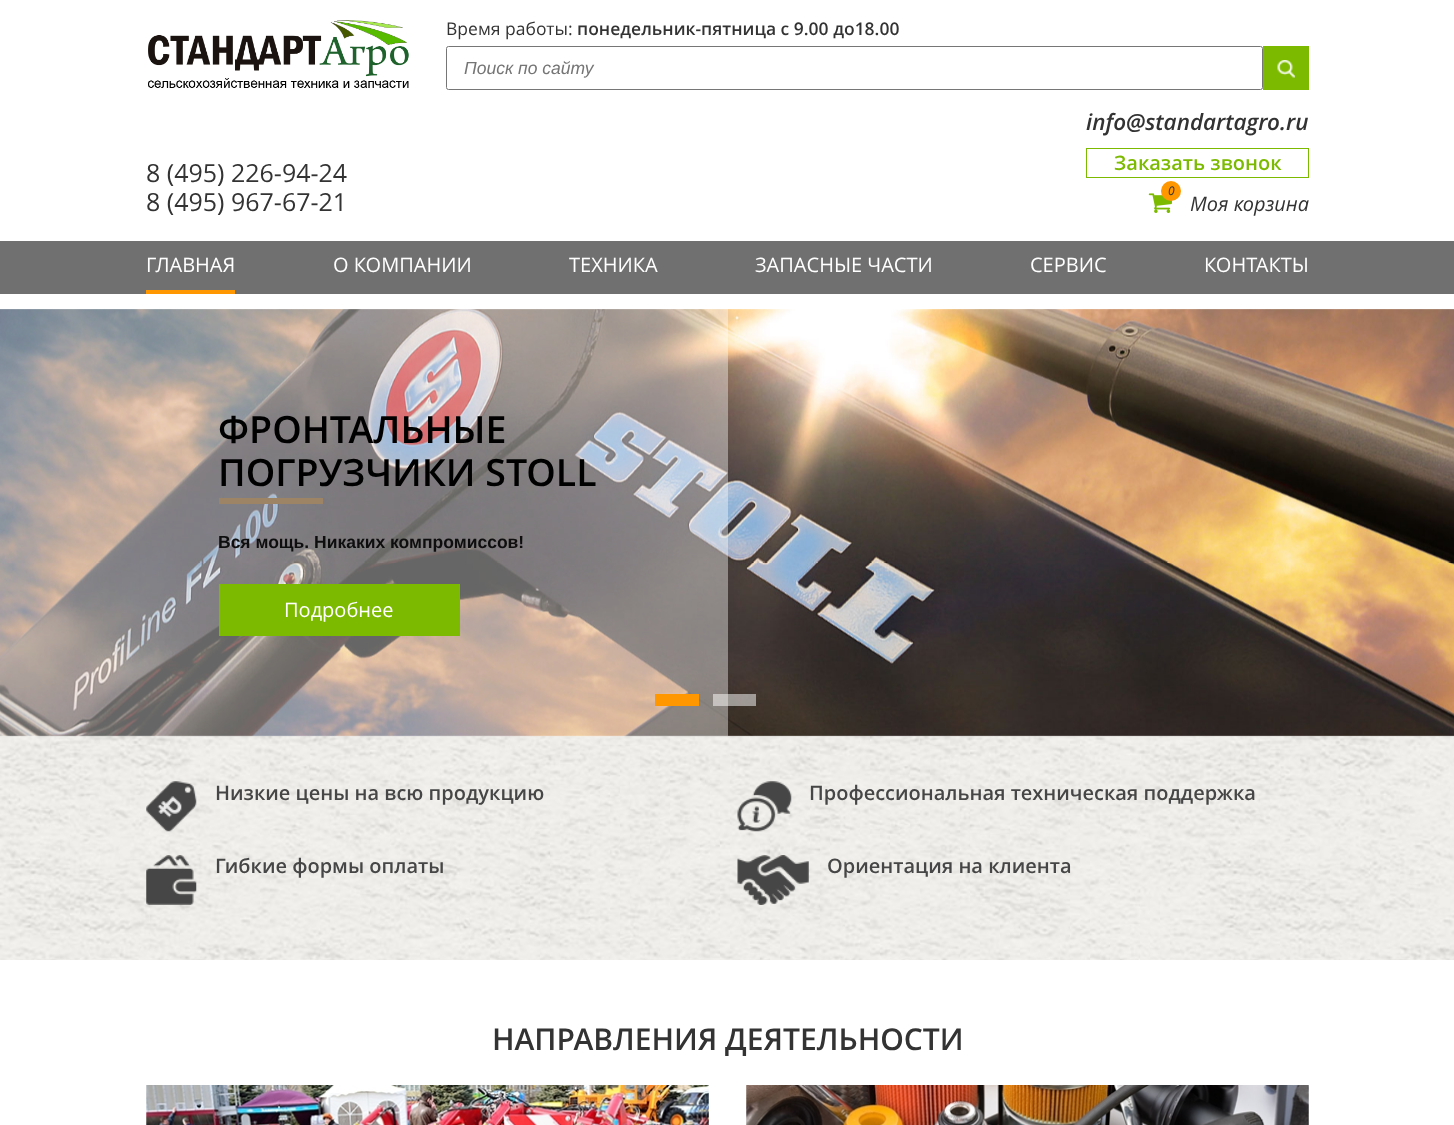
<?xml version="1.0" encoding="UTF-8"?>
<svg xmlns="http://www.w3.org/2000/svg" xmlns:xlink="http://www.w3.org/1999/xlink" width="1454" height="1125">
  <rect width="100%" height="100%" fill="#ffffff" />
  <image x="148" y="20" width="261" height="68" xlink:href="image1.png" />
  <rect x="446.5" y="46.5" width="816" height="43" rx="2" fill="none" stroke="#767676" />
  <rect x="1263" y="46" width="46" height="44" fill="#7cba00" />
  <image x="1277" y="60" width="18" height="18" xlink:href="image2.png" />
  <rect x="1086.5" y="148.5" width="222" height="29" fill="none" stroke="#7cba00" />
  <image x="1148" y="193" width="24" height="20" xlink:href="image3.png" />
  <circle cx="1171" cy="191" r="10" fill="#ff9800" />
  <rect y="241" width="1454" height="53" fill="#707070" />
  <rect x="146" y="290" width="89" height="4" fill="#ff9800" />
  <image x="0" y="309" width="1454" height="428" xlink:href="image4.png" />
  <rect y="309" width="728" height="427" fill="#ffffff" fill-opacity="0.4" />
  <rect x="219" y="498" width="104" height="6" fill="#9c8465" />
  <rect x="219" y="584" width="241" height="52" fill="#7cba00" />
  <rect x="655" y="694" width="44" height="12" fill="#ff9800" />
  <rect x="713" y="694" width="43" height="12" fill="#ffffff" fill-opacity="0.5" />
  <image x="0" y="736" width="1454" height="224" xlink:href="image5.png" />
  <rect y="736" width="1454" height="224" fill="#ffffff" fill-opacity="0.6" />
  <image x="146" y="781" width="51" height="51" xlink:href="image6.png" />
  <image x="737" y="781" width="55" height="51" xlink:href="image7.png" />
  <image x="146" y="855" width="51" height="50" xlink:href="image8.png" />
  <image x="737" y="855" width="72" height="50" xlink:href="image9.png" />
  <image x="146" y="1085" width="563" height="40" xlink:href="image10.png" />
  <image x="746" y="1085" width="563" height="40" xlink:href="image11.png" />
  <text x="446" y="35" style="font-family: Open Sans; font-size: 17.5px; fill: #333333">Время работы:</text>
  <text x="577" y="35" style="font-family: Open Sans; font-size: 17.5px; font-weight: 600; fill: #333333">понедельник-пятница с 9.00 до18.00</text>
  <text x="464" y="74" style="font-family: Liberation Sans; font-size: 17.5px; font-style: italic; fill: #757575">Поиск по сайту</text>
  <text x="146" y="182" style="font-family: Open Sans; font-size: 25px; fill: #333333">8 (495) 226-94-24</text>
  <text x="146" y="211" style="font-family: Open Sans; font-size: 25px; fill: #333333">8 (495) 967-67-21</text>
  <text x="1086" y="130" style="font-family: Open Sans; font-size: 22.5px; font-weight: 600; font-style: italic; fill: #333333">info@standartagro.ru</text>
  <text x="1114" y="170" style="font-family: Open Sans; font-size: 20px; font-weight: 600; fill: #7cba00">Заказать звонок</text>
  <text x="1168" y="195" style="font-family: Open Sans; font-size: 12px; font-style: italic; fill: #333333">0</text>
  <text x="1190" y="211" style="font-family: Open Sans; font-size: 20px; font-style: italic; fill: #333333">Моя корзина</text>
  <text x="146" y="272" style="font-family: Open Sans; font-size: 20px; fill: #ffffff">ГЛАВНАЯ</text>
  <text x="333" y="272" style="font-family: Open Sans; font-size: 20px; fill: #ffffff">О КОМПАНИИ</text>
  <text x="569" y="272" style="font-family: Open Sans; font-size: 20px; fill: #ffffff">ТЕХНИКА</text>
  <text x="755" y="272" style="font-family: Open Sans; font-size: 20px; fill: #ffffff">ЗАПАСНЫЕ ЧАСТИ</text>
  <text x="1030" y="272" style="font-family: Open Sans; font-size: 20px; fill: #ffffff">СЕРВИС</text>
  <text x="1204" y="272" style="font-family: Open Sans; font-size: 20px; fill: #ffffff">КОНТАКТЫ</text>
  <text x="218" y="443" style="font-family: Open Sans; font-size: 37.5px; font-weight: 600; fill: #000000">ФРОНТАЛЬНЫЕ</text>
  <text x="218" y="486" style="font-family: Open Sans; font-size: 37.5px; font-weight: 600; fill: #000000">ПОГРУЗЧИКИ STOLL</text>
  <text x="218" y="548" style="font-family: Liberation Sans; font-size: 17.5px; font-weight: bold; fill: #0f0e0f">Вся мощь. Никаких компромиссов!</text>
  <text x="284" y="617" style="font-family: Open Sans; font-size: 20px; fill: #ffffff">Подробнее</text>
  <text x="215" y="800" style="font-family: Open Sans; font-size: 20px; font-weight: 600; fill: #464646">Низкие цены на всю продукцию</text>
  <text x="809" y="800" style="font-family: Open Sans; font-size: 20px; font-weight: 600; fill: #464646">Профессиональная техническая поддержка</text>
  <text x="215" y="873" style="font-family: Open Sans; font-size: 20px; font-weight: 600; fill: #464646">Гибкие формы оплаты</text>
  <text x="827" y="873" style="font-family: Open Sans; font-size: 20px; font-weight: 600; fill: #464646">Ориентация на клиента</text>
  <text x="492" y="1050" style="font-family: Open Sans; font-size: 30px; font-weight: 600; fill: #333333">НАПРАВЛЕНИЯ ДЕЯТЕЛЬНОСТИ</text>
</svg>
